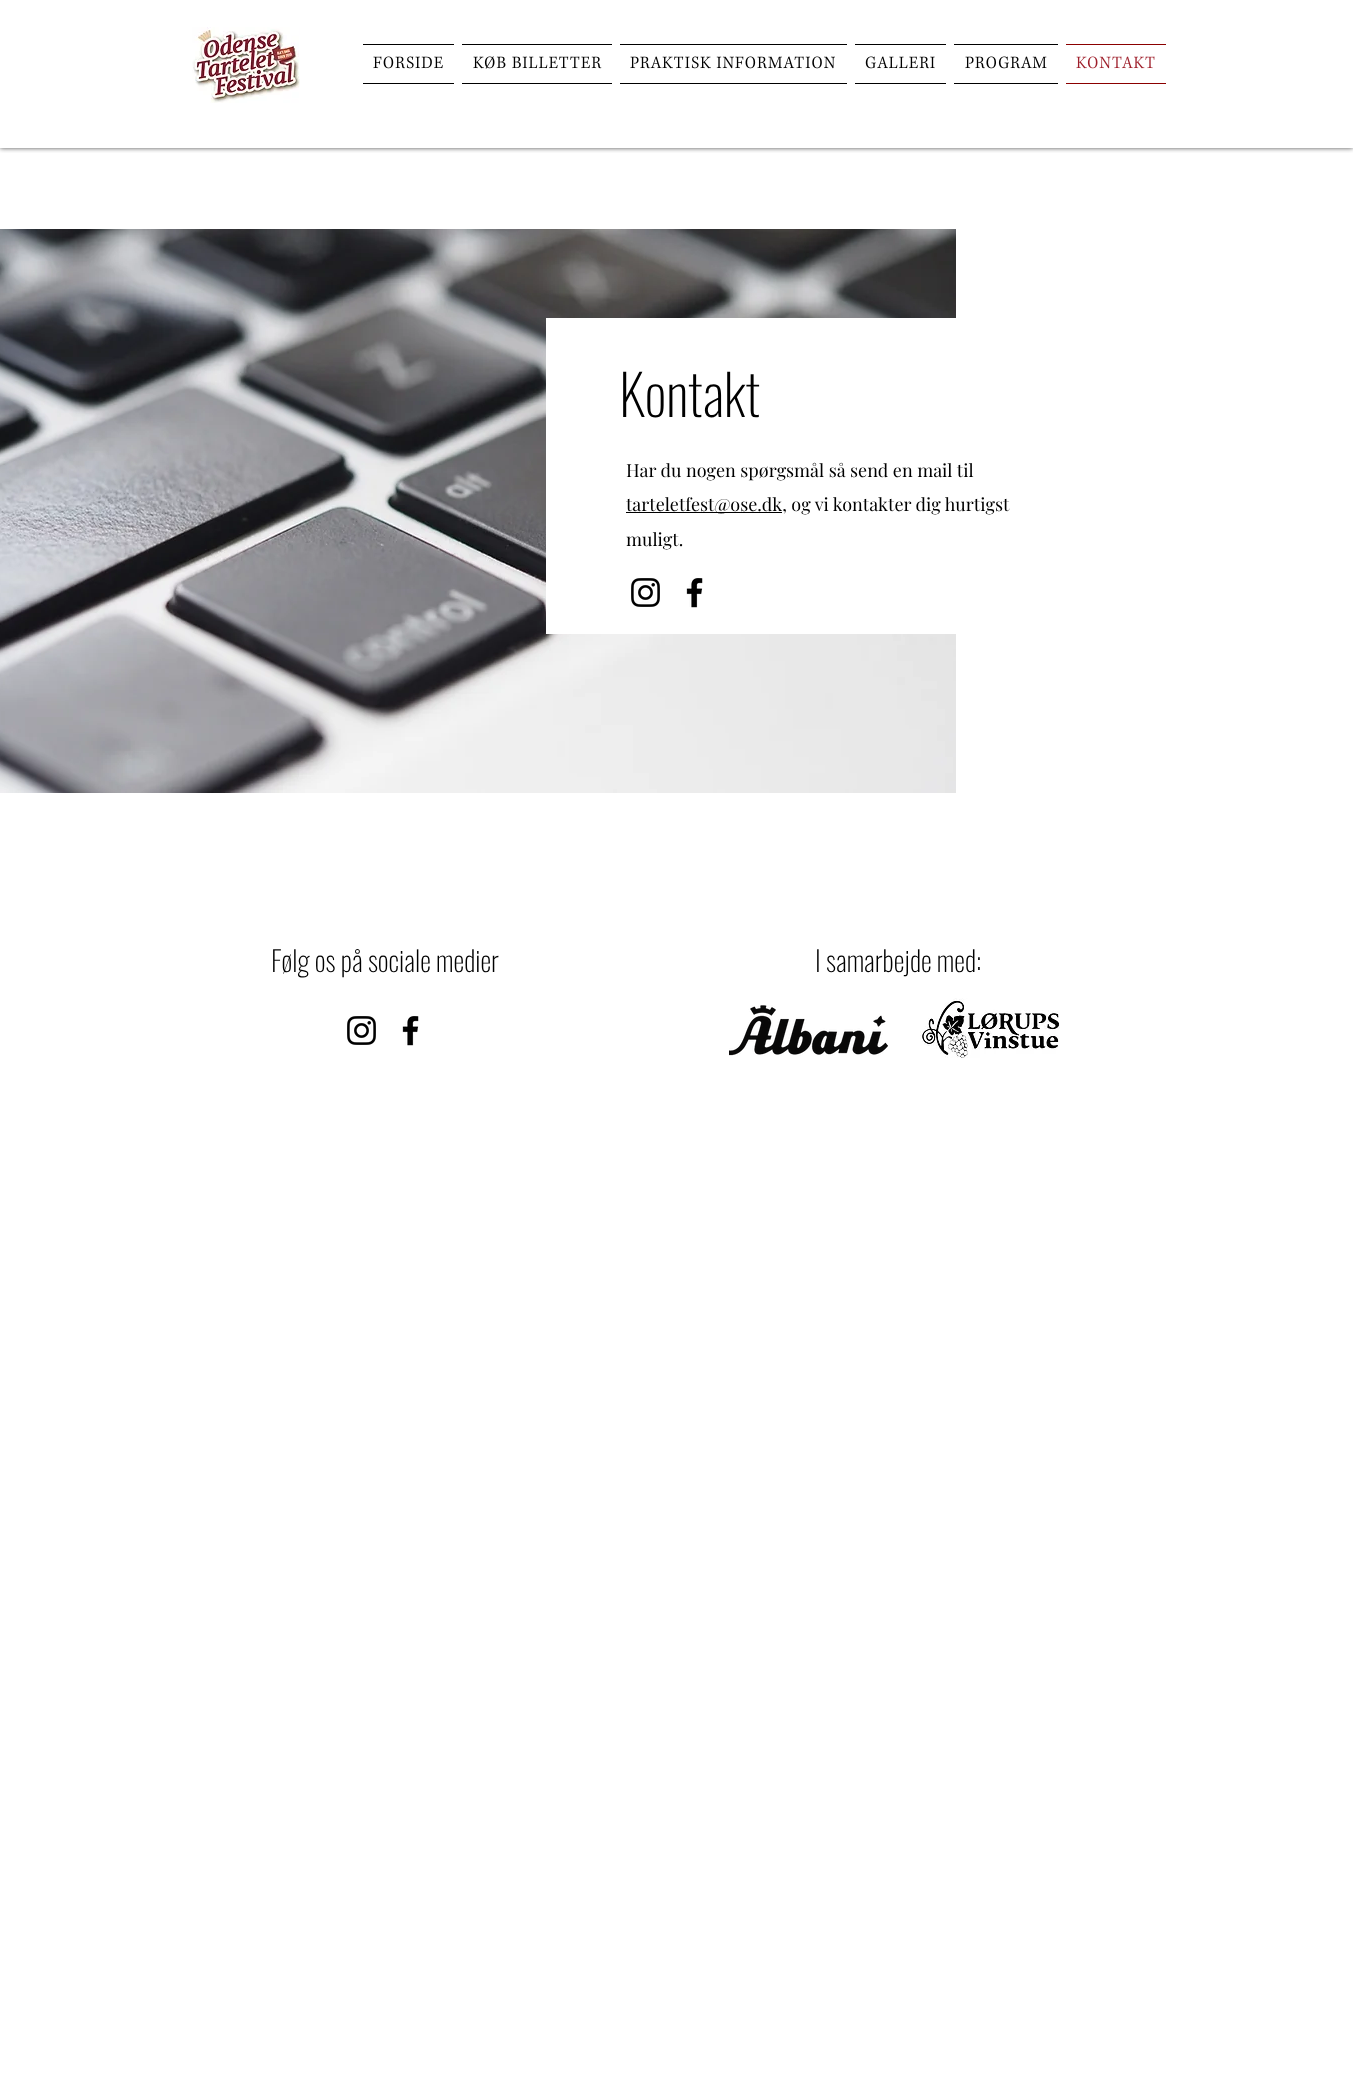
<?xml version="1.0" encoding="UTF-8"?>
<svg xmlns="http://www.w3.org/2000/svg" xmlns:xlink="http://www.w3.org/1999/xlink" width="1353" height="2073">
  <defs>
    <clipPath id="clip1"><rect x="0" y="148" width="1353" height="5" /></clipPath>
  </defs>
  <rect width="100%" height="100%" fill="#ffffff" />
  <g clip-path="url(#clip1)">
    <rect width="1353" height="148" fill="#000000" fill-opacity="0.7" filter="blur(2.5px)" />
  </g>
  <image x="192" y="27" width="108" height="76" xlink:href="image1.png" />
  <rect x="363" y="44" width="91" height="1" fill="#000000" />
  <rect x="363" y="83" width="91" height="1" fill="#000000" />
  <image x="373" y="56" width="70" height="13" xlink:href="image2.png" />
  <rect x="462" y="44" width="150" height="1" fill="#000000" />
  <rect x="462" y="83" width="150" height="1" fill="#000000" />
  <image x="473" y="56" width="129" height="13" xlink:href="image3.png" />
  <rect x="620" y="44" width="227" height="1" fill="#000000" />
  <rect x="620" y="83" width="227" height="1" fill="#000000" />
  <image x="630" y="56" width="205" height="13" xlink:href="image4.png" />
  <rect x="855" y="44" width="91" height="1" fill="#000000" />
  <rect x="855" y="83" width="91" height="1" fill="#000000" />
  <image x="865" y="56" width="70" height="13" xlink:href="image5.png" />
  <rect x="954" y="44" width="104" height="1" fill="#000000" />
  <rect x="954" y="83" width="104" height="1" fill="#000000" />
  <image x="965" y="56" width="82" height="13" xlink:href="image6.png" />
  <rect x="1066" y="44" width="100" height="1" fill="#8b0000" />
  <rect x="1066" y="83" width="100" height="1" fill="#8b0000" />
  <image x="1076" y="56" width="79" height="13" xlink:href="image7.png" />
  <image x="0" y="229" width="956" height="564" xlink:href="image8.png" />
  <rect x="546" y="318" width="410" height="316" fill="#ffffff" />
  <rect x="626" y="512" width="156" height="1" fill="#000000" />
  <image x="631" y="578" width="29" height="29" xlink:href="image9.png" />
  <image x="686" y="578" width="17" height="30" xlink:href="image10.png" />
  <image x="347" y="1016" width="29" height="29" xlink:href="image9.png" />
  <image x="402" y="1016" width="17" height="30" xlink:href="image10.png" />
  <image x="729" y="1005" width="159" height="51" xlink:href="image11.png" />
  <image x="920" y="998" width="140" height="60" xlink:href="image12.png" />
  <text x="619" y="417" style="font-family: Oswald; font-size: 56px; font-weight: 200; fill: #000000">Kontakt</text>
  <text x="626" y="477" style="font-family: Playfair Display; font-size: 18px; fill: #000000">Har du nogen spørgsmål så send en mail til</text>
  <text x="626" y="511" style="font-family: Playfair Display; font-size: 18px; fill: #000000">tarteletfest@ose.dk, og vi kontakter dig hurtigst</text>
  <text x="626" y="546" style="font-family: Playfair Display; font-size: 18px; fill: #000000">muligt.</text>
  <text x="271" y="972" style="font-family: Oswald; font-size: 28px; font-weight: 200; fill: #000000">Følg os på sociale medier</text>
  <text x="815" y="972" style="font-family: Oswald; font-size: 28px; font-weight: 200; fill: #000000">I samarbejde med:</text>
</svg>
